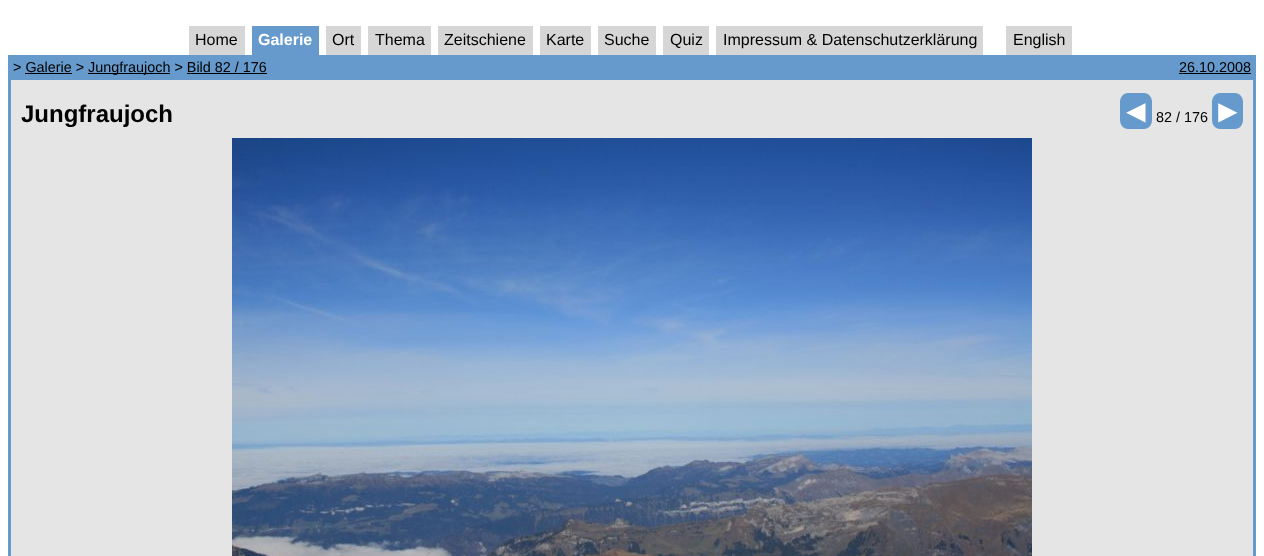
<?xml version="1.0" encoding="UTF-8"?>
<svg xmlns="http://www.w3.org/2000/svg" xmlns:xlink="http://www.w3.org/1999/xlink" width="1264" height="556">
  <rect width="100%" height="100%" fill="#ffffff" />
  <rect x="189" y="26" width="56" height="29" fill="#d6d6d6" />
  <rect x="252" y="26" width="67" height="29" fill="#6699cc" />
  <rect x="326" y="26" width="35" height="29" fill="#d6d6d6" />
  <rect x="368" y="26" width="63" height="29" fill="#d6d6d6" />
  <rect x="438" y="26" width="95" height="29" fill="#d6d6d6" />
  <rect x="540" y="26" width="51" height="29" fill="#d6d6d6" />
  <rect x="598" y="26" width="58" height="29" fill="#d6d6d6" />
  <rect x="663" y="26" width="46" height="29" fill="#d6d6d6" />
  <rect x="716" y="26" width="267" height="29" fill="#d6d6d6" />
  <rect x="1006" y="26" width="66" height="29" fill="#d6d6d6" />
  <rect x="8" y="55" width="1248" height="25" fill="#6699cc" />
  <rect x="88" y="73" width="82" height="1" fill="#000000" />
  <rect x="25" y="73" width="47" height="1" fill="#000000" />
  <rect x="187" y="73" width="80" height="1" fill="#000000" />
  <rect x="1179" y="73" width="72" height="1" fill="#000000" />
  <rect x="11" y="80" width="1242" height="476" fill="#e5e5e5" />
  <rect x="1253" y="80" width="3" height="476" fill="#6699cc" />
  <rect x="8" y="80" width="3" height="476" fill="#6699cc" />
  <path d="M 1128 93 h 16 c 4.5 0 8 4 8 9 v 18 c 0 5 -3.5 9 -8 9 h -16 c -4.5 0 -8 -4 -8 -9 v -18 c 0 -5 3.5 -9 8 -9 z" fill="#6699cc" />
  <path d="M 1220 93 h 15 c 4.5 0 8 4 8 9 v 18 c 0 5 -3.5 9 -8 9 h -15 c -4.5 0 -8 -4 -8 -9 v -18 c 0 -5 3.5 -9 8 -9 z" fill="#6699cc" />
  <image x="232" y="138" width="800" height="418" xlink:href="image1.png" />
  <text x="195" y="45" style="font-family: Liberation Sans; font-size: 16px; fill: #000000">Home</text>
  <text x="258" y="45" style="font-family: Liberation Sans; font-size: 16px; font-weight: bold; fill: #ffffff">Galerie</text>
  <text x="332" y="45" style="font-family: Liberation Sans; font-size: 16px; fill: #000000">Ort</text>
  <text x="375" y="45" style="font-family: Liberation Sans; font-size: 16px; fill: #000000">Thema</text>
  <text x="444" y="45" style="font-family: Liberation Sans; font-size: 16px; fill: #000000">Zeitschiene</text>
  <text x="546" y="45" style="font-family: Liberation Sans; font-size: 16px; fill: #000000">Karte</text>
  <text x="604" y="45" style="font-family: Liberation Sans; font-size: 16px; fill: #000000">Suche</text>
  <text x="670" y="45" style="font-family: Liberation Sans; font-size: 16px; fill: #000000">Quiz</text>
  <text x="723" y="45" style="font-family: Liberation Sans; font-size: 16px; fill: #000000">Impressum &amp; Datenschutzerklärung</text>
  <text x="1013" y="45" style="font-family: Liberation Sans; font-size: 16px; fill: #000000">English</text>
  <text x="13" y="72" style="font-family: Liberation Sans; font-size: 14.4px; fill: #000000">&gt; Galerie &gt;</text>
  <text x="88" y="72" style="font-family: Liberation Sans; font-size: 14.4px; fill: #000000">Jungfraujoch &gt; Bild 82 / 176</text>
  <text x="1179" y="72" style="font-family: Liberation Sans; font-size: 14.4px; fill: #000000">26.10.2008</text>
  <text x="21" y="122" style="font-family: Liberation Sans; font-size: 24px; font-weight: bold; fill: #000000">Jungfraujoch</text>
  <text x="1120" y="122" style="font-family: Liberation Sans; font-size: 32px; fill: #ffffff">◄</text>
  <text x="1156" y="122" style="font-family: Liberation Sans; font-size: 14.4px; fill: #000000">82 / 176</text>
  <text x="1212" y="122" style="font-family: Liberation Sans; font-size: 32px; fill: #ffffff">►</text>
</svg>
